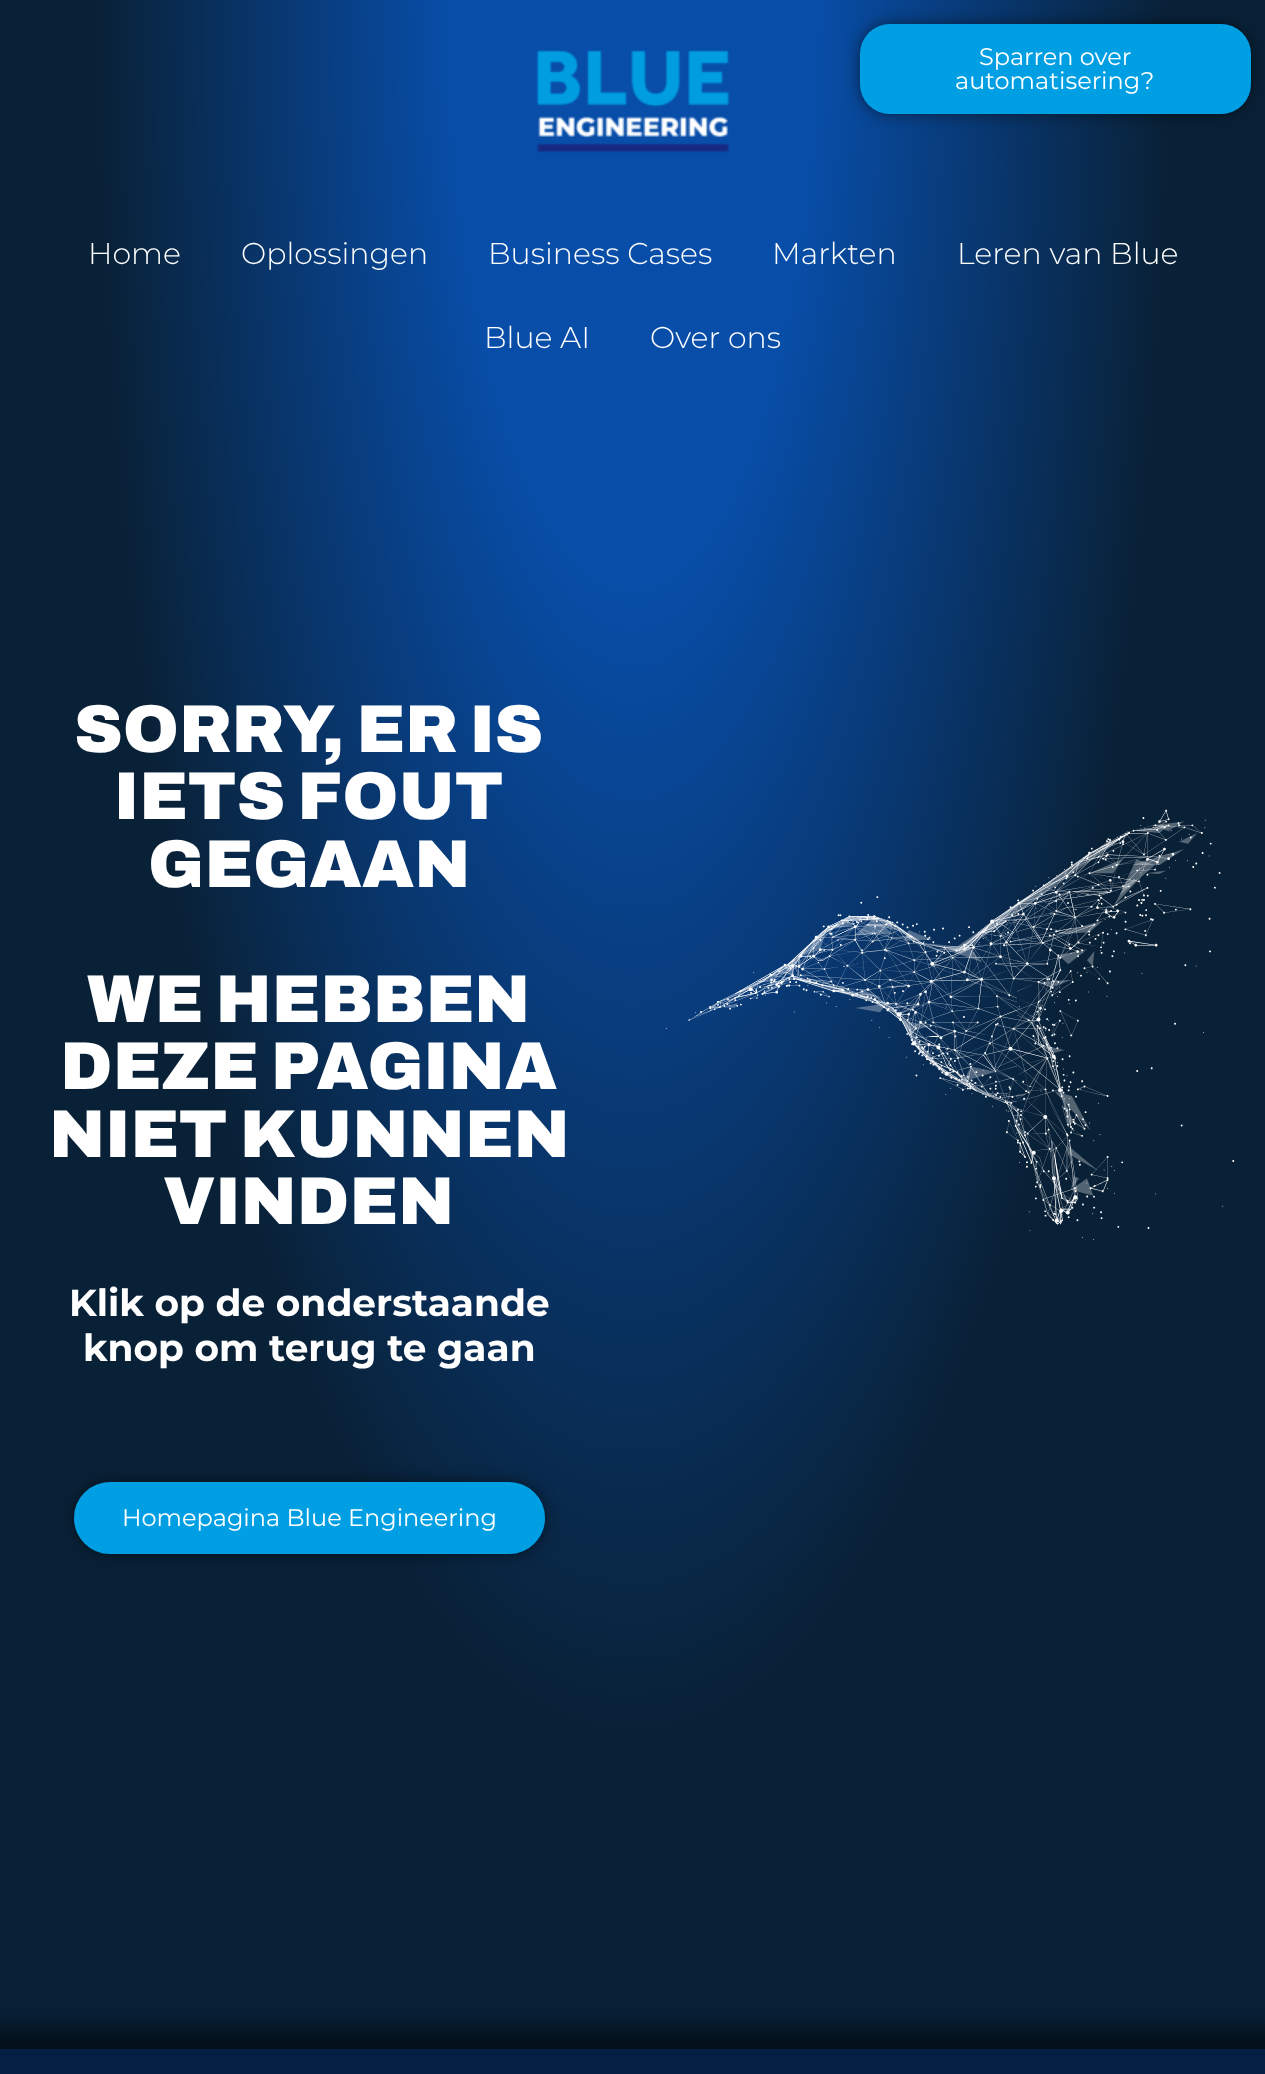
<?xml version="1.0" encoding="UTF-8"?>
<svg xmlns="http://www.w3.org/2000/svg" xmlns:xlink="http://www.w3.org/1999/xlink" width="1265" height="2074">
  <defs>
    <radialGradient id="g1" gradientUnits="userSpaceOnUse" cx="0" cy="0" r="1" gradientTransform="matrix(895 0 0 2934 633 -25)"><stop offset="0.2" stop-color="#084ea9" /><stop offset="0.6" stop-color="#092137" /></radialGradient>
  </defs>
  <rect width="100%" height="100%" fill="#ffffff" />
  <rect width="1265" height="2049" fill="url(#g1)" />
  <image x="536" y="50" width="194" height="103" xlink:href="image1.png" />
  <rect x="860" y="24" width="391" height="90" rx="30" fill="#000000" fill-opacity="0.5" filter="blur(7.5px)" />
  <rect x="860" y="24" width="391" height="90" rx="30" fill="#009fe3" />
  <rect x="74" y="1482" width="471" height="72" rx="36" fill="#000000" fill-opacity="0.5" filter="blur(7.5px)" />
  <rect x="75.5" y="1483.5" width="468" height="69" rx="34.5" fill="#009fe3" stroke="#009fe3" stroke-width="3" />
  <image x="666" y="809" width="569" height="431" xlink:href="image2.png" />
  <rect x="-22" y="2027" width="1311" height="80" fill="#000000" fill-opacity="0.5" filter="blur(11px)" />
  <rect y="2049" width="1265" height="25" fill="#051e43" />
  <text x="979" y="65" style="font-family: Montserrat; font-size: 24px; fill: #ffffff">Sparren over</text>
  <text x="955" y="89" style="font-family: Montserrat; font-size: 24px; fill: #ffffff">automatisering?</text>
  <text x="88" y="264" style="font-family: Montserrat; font-size: 30px; font-weight: 300; fill: #ffffff">Home</text>
  <text x="241" y="264" style="font-family: Montserrat; font-size: 30px; font-weight: 300; fill: #ffffff">Oplossingen</text>
  <text x="488" y="264" style="font-family: Montserrat; font-size: 30px; font-weight: 300; fill: #ffffff">Business Cases</text>
  <text x="772" y="264" style="font-family: Montserrat; font-size: 30px; font-weight: 300; fill: #ffffff">Markten</text>
  <text x="957" y="264" style="font-family: Montserrat; font-size: 30px; font-weight: 300; fill: #ffffff">Leren van Blue</text>
  <text x="484" y="348" style="font-family: Montserrat; font-size: 30px; font-weight: 300; fill: #ffffff">Blue AI</text>
  <text x="650" y="348" style="font-family: Montserrat; font-size: 30px; font-weight: 300; fill: #ffffff">Over ons</text>
  <text x="74" y="752" style="font-family: Archivo; font-size: 67.5px; font-weight: 900; fill: #ffffff">SORRY, ER IS</text>
  <text x="114" y="819" style="font-family: Archivo; font-size: 67.5px; font-weight: 900; fill: #ffffff">IETS FOUT</text>
  <text x="148" y="887" style="font-family: Archivo; font-size: 67.5px; font-weight: 900; fill: #ffffff">GEGAAN</text>
  <text x="87" y="1022" style="font-family: Archivo; font-size: 67.5px; font-weight: 900; fill: #ffffff">WE HEBBEN</text>
  <text x="60" y="1089" style="font-family: Archivo; font-size: 67.5px; font-weight: 900; fill: #ffffff">DEZE PAGINA</text>
  <text x="49" y="1157" style="font-family: Archivo; font-size: 67.5px; font-weight: 900; fill: #ffffff">NIET KUNNEN</text>
  <text x="163" y="1224" style="font-family: Archivo; font-size: 67.5px; font-weight: 900; fill: #ffffff">VINDEN</text>
  <text x="69" y="1316" style="font-family: Montserrat; font-size: 37.5px; font-weight: bold; fill: #ffffff">Klik op de onderstaande</text>
  <text x="83" y="1361" style="font-family: Montserrat; font-size: 37.5px; font-weight: bold; fill: #ffffff">knop om terug te gaan</text>
  <text x="122" y="1526" style="font-family: Montserrat; font-size: 24px; fill: #ffffff">Homepagina Blue Engineering</text>
</svg>
